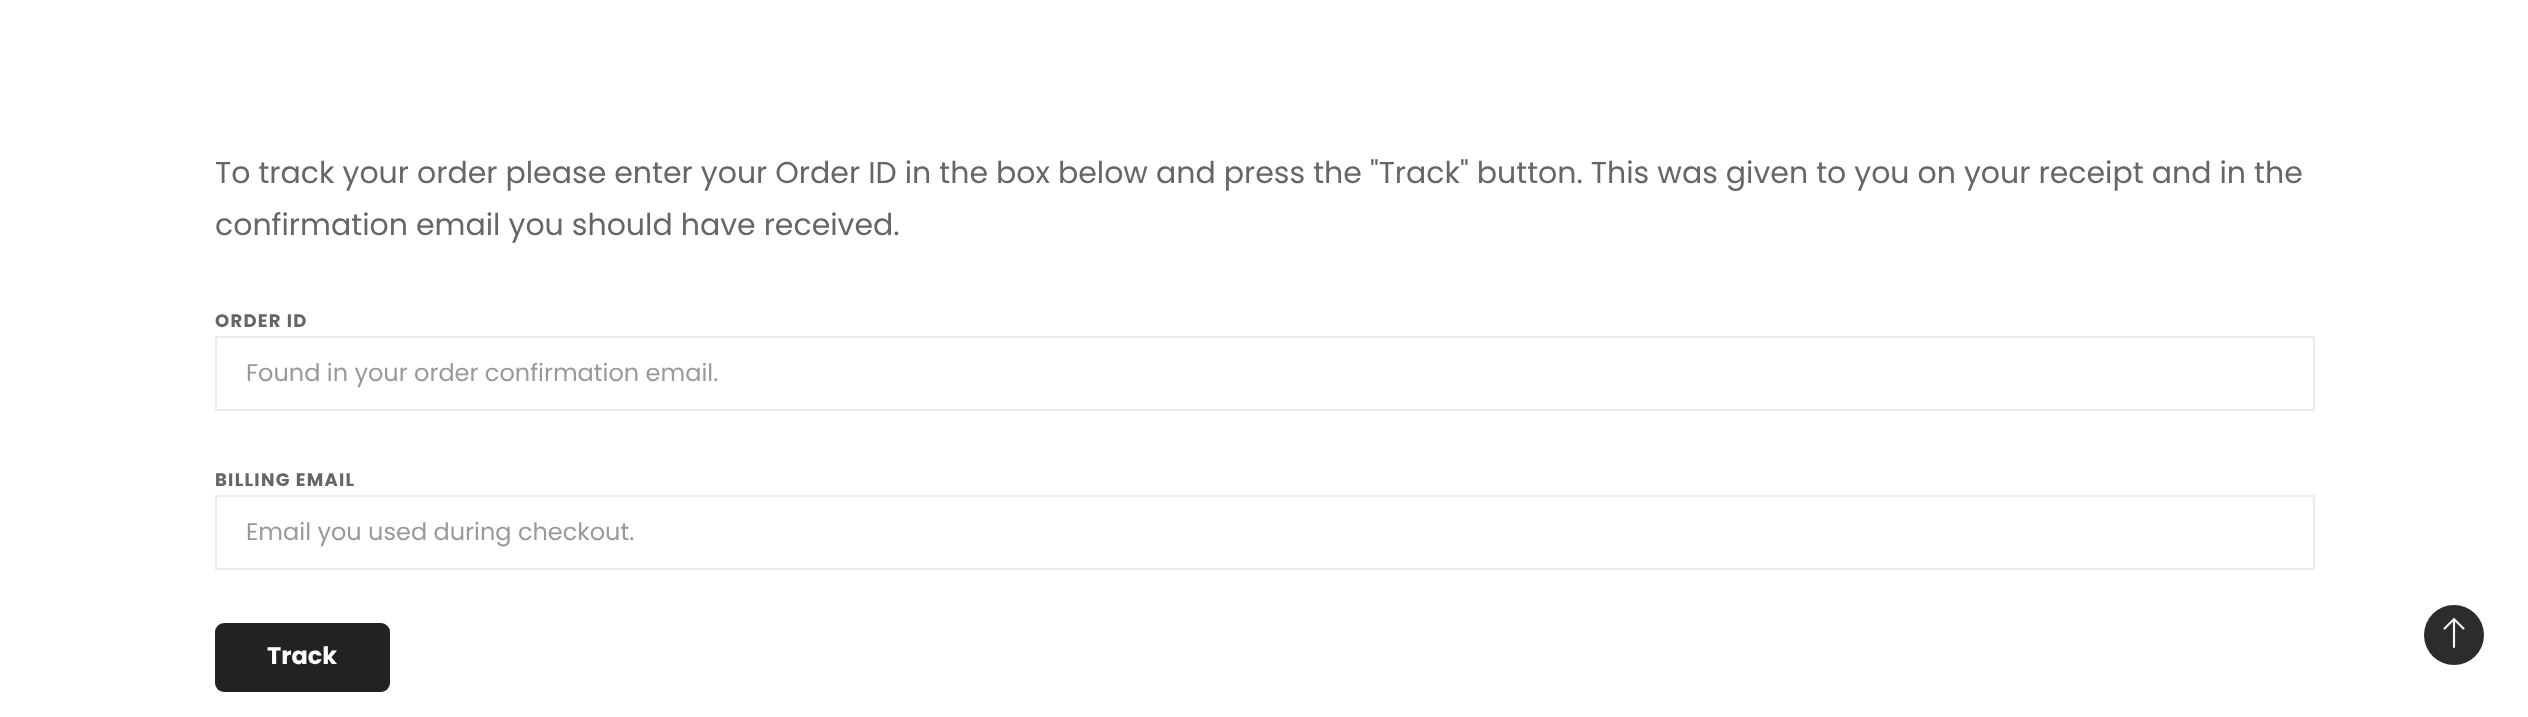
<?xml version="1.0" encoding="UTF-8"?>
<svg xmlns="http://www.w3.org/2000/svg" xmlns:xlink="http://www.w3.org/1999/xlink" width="2528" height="717">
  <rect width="100%" height="100%" fill="#ffffff" />
  <rect x="216" y="337" width="2098" height="73" fill="none" stroke="#ebebeb" stroke-width="2" />
  <rect x="216" y="496" width="2098" height="73" fill="none" stroke="#ebebeb" stroke-width="2" />
  <rect x="215" y="623" width="175" height="69" rx="9" fill="#222222" />
  <circle cx="2454" cy="635" r="30" fill="#2c2c2c" />
  <image x="2443" y="618" width="22" height="30" xlink:href="image1.png" />
  <text x="215" y="183" style="font-family: Poppins; font-size: 30px; fill: #666666">To track your order please enter your Order ID in the box below and press the "Track" button. This was given to you on your receipt and in the</text>
  <text x="215" y="235" style="font-family: Poppins; font-size: 30px; fill: #666666">confirmation email you should have received.</text>
  <text x="215" y="327" style="font-family: Poppins; font-size: 18px; font-weight: bold; letter-spacing: 1.25px; fill: #666666">ORDER ID</text>
  <text x="246" y="381" style="font-family: Poppins; font-size: 24px; fill: #999999">Found in your order confirmation email.</text>
  <text x="215" y="486" style="font-family: Poppins; font-size: 18px; font-weight: bold; letter-spacing: 1.25px; fill: #666666">BILLING EMAIL</text>
  <text x="246" y="540" style="font-family: Poppins; font-size: 24px; fill: #999999">Email you used during checkout.</text>
  <text x="267" y="664" style="font-family: Poppins; font-size: 24px; font-weight: bold; fill: #ffffff">Track</text>
</svg>
